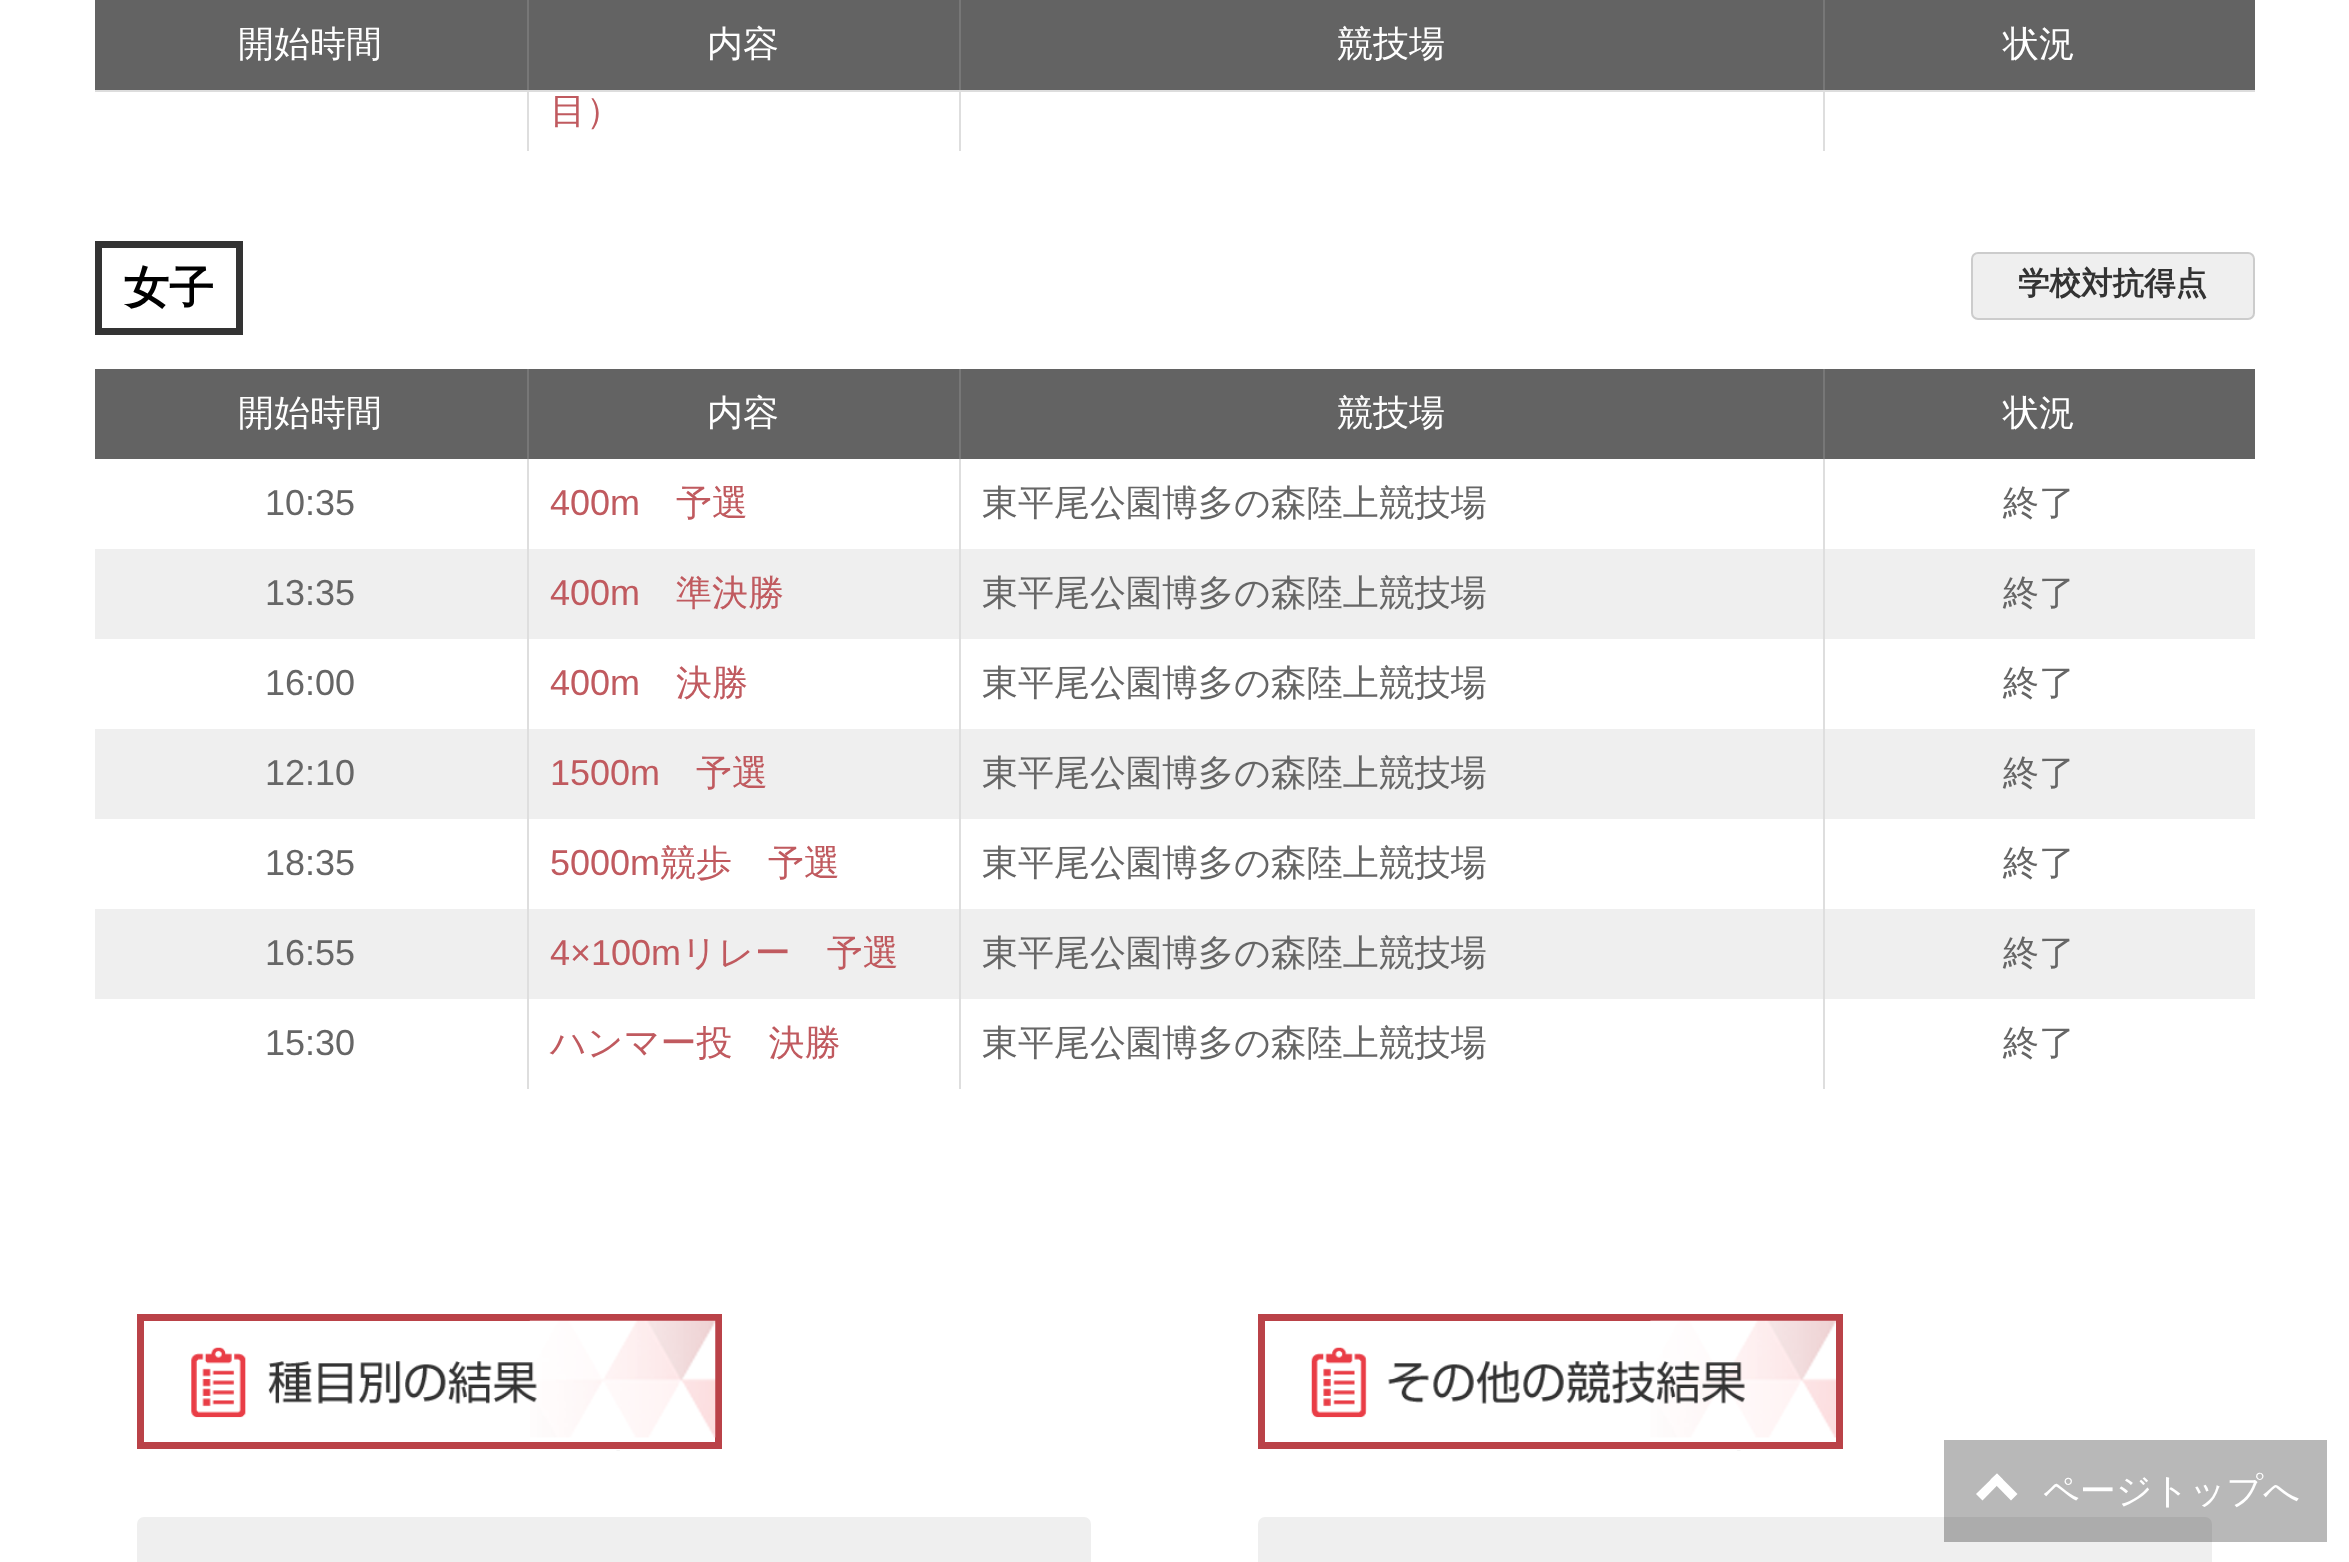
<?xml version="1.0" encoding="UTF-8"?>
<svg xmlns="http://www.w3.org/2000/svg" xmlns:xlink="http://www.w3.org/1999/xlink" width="2349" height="1562">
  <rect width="100%" height="100%" fill="#ffffff" />
  <rect x="95" y="90" width="2160" height="2" fill="#dddddd" />
  <rect x="95" width="432" height="90" fill="#636363" />
  <rect x="529" width="430" height="90" fill="#636363" />
  <rect x="527" width="2" height="90" fill="#777777" />
  <rect x="961" width="862" height="90" fill="#636363" />
  <rect x="959" width="2" height="90" fill="#777777" />
  <rect x="1825" width="430" height="90" fill="#636363" />
  <rect x="1823" width="2" height="90" fill="#777777" />
  <rect x="527" y="92" width="2" height="59" fill="#dedede" />
  <rect x="959" y="92" width="2" height="59" fill="#dedede" />
  <rect x="1823" y="92" width="2" height="59" fill="#dedede" />
  <rect x="98.5" y="244.5" width="141" height="87" fill="none" stroke="#333333" stroke-width="7" />
  <rect x="1972" y="253" width="282" height="66" rx="6" fill="#efefef" stroke="#cccccc" stroke-width="2" />
  <rect x="95" y="369" width="432" height="90" fill="#636363" />
  <rect x="529" y="369" width="430" height="90" fill="#636363" />
  <rect x="95" y="549" width="2160" height="90" fill="#efefef" />
  <rect x="95" y="729" width="2160" height="90" fill="#efefef" />
  <rect x="95" y="909" width="2160" height="90" fill="#efefef" />
  <rect x="527" y="457" width="2" height="632" fill="#dedede" />
  <rect x="527" y="369" width="2" height="90" fill="#777777" />
  <rect x="961" y="369" width="862" height="90" fill="#636363" />
  <rect x="959" y="457" width="2" height="632" fill="#dedede" />
  <rect x="959" y="369" width="2" height="90" fill="#777777" />
  <rect x="1825" y="369" width="430" height="90" fill="#636363" />
  <rect x="1823" y="457" width="2" height="632" fill="#dedede" />
  <rect x="1823" y="369" width="2" height="90" fill="#777777" />
  <rect x="140.5" y="1317.5" width="578" height="128" fill="none" stroke="#ba4248" stroke-width="7" />
  <image x="529" y="1320" width="187" height="131" xlink:href="image2.png" />
  <image x="191" y="1347" width="346" height="71" xlink:href="image1.png" />
  <rect x="137" y="1517" width="954" height="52" rx="7" fill="#efefef" />
  <rect x="1261.5" y="1317.5" width="578" height="128" fill="none" stroke="#ba4248" stroke-width="7" />
  <image x="1650" y="1320" width="186" height="131" xlink:href="image3.png" />
  <image x="1311" y="1347" width="434" height="71" xlink:href="image4.png" />
  <rect x="1258" y="1517" width="954" height="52" rx="7" fill="#efefef" />
  <rect x="1944" y="1440" width="383" height="102" fill="#000000" fill-opacity="0.28" />
  <path d="M 1976 1494 l 21 -20.5 l 6 6 l -20.5 21 z" fill="#ffffff" />
  <path d="M 1990.5 1479.5 l 6.5 -6 l 20.5 20.5 l -6.5 6.5 z" fill="#ffffff" />
  <text x="238" y="56" style="font-family: WenQuanYi Zen Hei; font-size: 36px; font-weight: 500; fill: #ffffff">開始時間</text>
  <text x="707" y="56" style="font-family: WenQuanYi Zen Hei; font-size: 36px; font-weight: 500; fill: #ffffff">内容</text>
  <text x="1337" y="56" style="font-family: WenQuanYi Zen Hei; font-size: 36px; font-weight: 500; fill: #ffffff">競技場</text>
  <text x="2003" y="56" style="font-family: WenQuanYi Zen Hei; font-size: 36px; font-weight: 500; fill: #ffffff">状況</text>
  <text x="550" y="123" style="font-family: WenQuanYi Zen Hei; font-size: 36px; font-weight: 500; fill: #c05a5f">目）</text>
  <text x="124" y="303" style="font-family: WenQuanYi Zen Hei; font-size: 45px; font-weight: bold; fill: #000000">女子</text>
  <text x="2018" y="294" style="font-family: WenQuanYi Zen Hei; font-size: 31.5px; font-weight: bold; fill: #333333">学校対抗得点</text>
  <text x="238" y="425" style="font-family: WenQuanYi Zen Hei; font-size: 36px; font-weight: 500; fill: #ffffff">開始時間</text>
  <text x="707" y="425" style="font-family: WenQuanYi Zen Hei; font-size: 36px; font-weight: 500; fill: #ffffff">内容</text>
  <text x="1337" y="425" style="font-family: WenQuanYi Zen Hei; font-size: 36px; font-weight: 500; fill: #ffffff">競技場</text>
  <text x="2003" y="425" style="font-family: WenQuanYi Zen Hei; font-size: 36px; font-weight: 500; fill: #ffffff">状況</text>
  <text x="265" y="515" style="font-family: Liberation Sans; font-size: 36px; fill: #666666">10:35</text>
  <text x="550" y="515" style="font-family: Liberation Sans; font-size: 36px; fill: #c05a5f">400m</text>
  <text x="676" y="515" style="font-family: WenQuanYi Zen Hei; font-size: 36px; font-weight: 500; fill: #c05a5f">予選</text>
  <text x="982" y="515" style="font-family: WenQuanYi Zen Hei; font-size: 36px; font-weight: 500; fill: #666666">東平尾公園博多の森陸上競技場</text>
  <text x="2003" y="515" style="font-family: WenQuanYi Zen Hei; font-size: 36px; font-weight: 500; fill: #666666">終了</text>
  <text x="265" y="605" style="font-family: Liberation Sans; font-size: 36px; fill: #666666">13:35</text>
  <text x="550" y="605" style="font-family: Liberation Sans; font-size: 36px; fill: #c05a5f">400m</text>
  <text x="676" y="605" style="font-family: WenQuanYi Zen Hei; font-size: 36px; font-weight: 500; fill: #c05a5f">準決勝</text>
  <text x="982" y="605" style="font-family: WenQuanYi Zen Hei; font-size: 36px; font-weight: 500; fill: #666666">東平尾公園博多の森陸上競技場</text>
  <text x="2003" y="605" style="font-family: WenQuanYi Zen Hei; font-size: 36px; font-weight: 500; fill: #666666">終了</text>
  <text x="265" y="695" style="font-family: Liberation Sans; font-size: 36px; fill: #666666">16:00</text>
  <text x="550" y="695" style="font-family: Liberation Sans; font-size: 36px; fill: #c05a5f">400m</text>
  <text x="676" y="695" style="font-family: WenQuanYi Zen Hei; font-size: 36px; font-weight: 500; fill: #c05a5f">決勝</text>
  <text x="982" y="695" style="font-family: WenQuanYi Zen Hei; font-size: 36px; font-weight: 500; fill: #666666">東平尾公園博多の森陸上競技場</text>
  <text x="2003" y="695" style="font-family: WenQuanYi Zen Hei; font-size: 36px; font-weight: 500; fill: #666666">終了</text>
  <text x="265" y="785" style="font-family: Liberation Sans; font-size: 36px; fill: #666666">12:10</text>
  <text x="550" y="785" style="font-family: Liberation Sans; font-size: 36px; fill: #c05a5f">1500m</text>
  <text x="696" y="785" style="font-family: WenQuanYi Zen Hei; font-size: 36px; font-weight: 500; fill: #c05a5f">予選</text>
  <text x="982" y="785" style="font-family: WenQuanYi Zen Hei; font-size: 36px; font-weight: 500; fill: #666666">東平尾公園博多の森陸上競技場</text>
  <text x="2003" y="785" style="font-family: WenQuanYi Zen Hei; font-size: 36px; font-weight: 500; fill: #666666">終了</text>
  <text x="265" y="875" style="font-family: Liberation Sans; font-size: 36px; fill: #666666">18:35</text>
  <text x="550" y="875" style="font-family: Liberation Sans; font-size: 36px; fill: #c05a5f">5000m</text>
  <text x="660" y="875" style="font-family: WenQuanYi Zen Hei; font-size: 36px; font-weight: 500; fill: #c05a5f">競歩　予選</text>
  <text x="982" y="875" style="font-family: WenQuanYi Zen Hei; font-size: 36px; font-weight: 500; fill: #666666">東平尾公園博多の森陸上競技場</text>
  <text x="2003" y="875" style="font-family: WenQuanYi Zen Hei; font-size: 36px; font-weight: 500; fill: #666666">終了</text>
  <text x="265" y="965" style="font-family: Liberation Sans; font-size: 36px; fill: #666666">16:55</text>
  <text x="550" y="965" style="font-family: Liberation Sans; font-size: 36px; fill: #c05a5f">4×100m</text>
  <text x="681" y="965" style="font-family: WenQuanYi Zen Hei; font-size: 36px; font-weight: 500; fill: #c05a5f">リレー　予選</text>
  <text x="982" y="965" style="font-family: WenQuanYi Zen Hei; font-size: 36px; font-weight: 500; fill: #666666">東平尾公園博多の森陸上競技場</text>
  <text x="2003" y="965" style="font-family: WenQuanYi Zen Hei; font-size: 36px; font-weight: 500; fill: #666666">終了</text>
  <text x="265" y="1055" style="font-family: Liberation Sans; font-size: 36px; fill: #666666">15:30</text>
  <text x="550" y="1055" style="font-family: WenQuanYi Zen Hei; font-size: 36px; font-weight: 500; fill: #c05a5f">ハンマー投　決勝</text>
  <text x="982" y="1055" style="font-family: WenQuanYi Zen Hei; font-size: 36px; font-weight: 500; fill: #666666">東平尾公園博多の森陸上競技場</text>
  <text x="2003" y="1055" style="font-family: WenQuanYi Zen Hei; font-size: 36px; font-weight: 500; fill: #666666">終了</text>
  <text x="2043" y="1503" style="font-family: WenQuanYi Zen Hei; font-size: 36px; font-weight: 500; fill: #ffffff">ページトップへ</text>
</svg>
